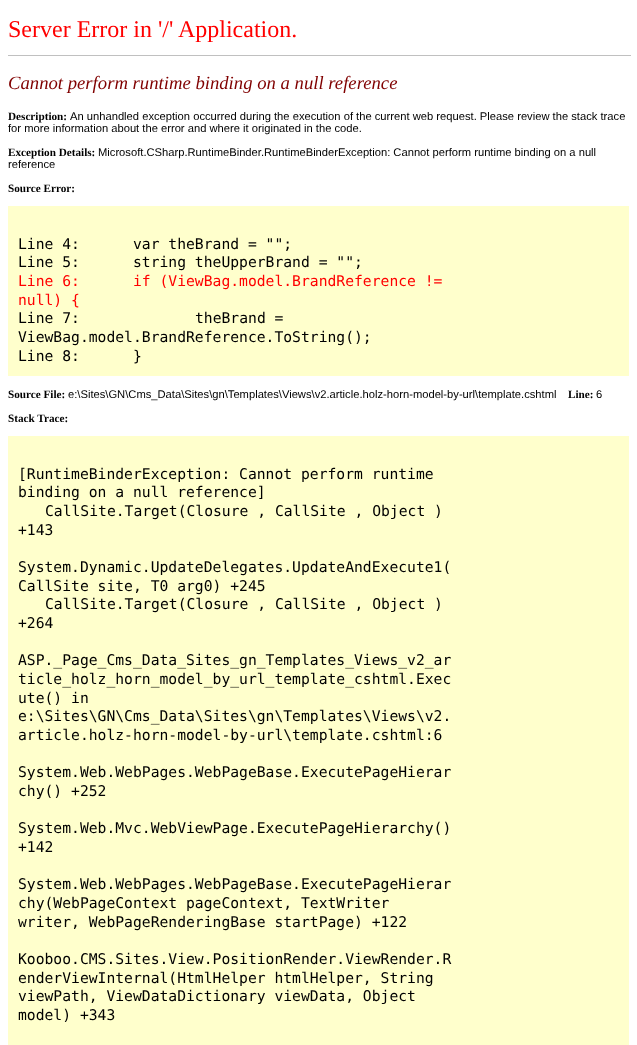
<?xml version="1.0" encoding="UTF-8"?>
<svg xmlns="http://www.w3.org/2000/svg" xmlns:xlink="http://www.w3.org/1999/xlink" width="637" height="1045">
  <rect width="100%" height="100%" fill="#ffffff" />
  <rect x="8" y="55" width="623" height="1" fill="#c0c0c0" />
  <rect x="8" y="206" width="621" height="170" fill="#ffffcc" />
  <rect x="8" y="436" width="621" height="609" fill="#ffffcc" />
  <text x="8" y="37" style="font-family: Liberation Serif; font-size: 24px; fill: #ff0000">Server Error in '/' Application.</text>
  <text x="8" y="89" style="font-family: Liberation Serif; font-size: 18.7px; font-style: italic; fill: #800000">Cannot perform runtime binding on a null reference</text>
  <text x="8" y="120" style="font-family: Liberation Serif; font-size: 11.2px; font-weight: bold; fill: #000000">Description:</text>
  <text x="70" y="120" style="font-family: Liberation Sans; font-size: 11.2px; fill: #000000">An unhandled exception occurred during the execution of the current web request. Please review the stack trace</text>
  <text x="8" y="132" style="font-family: Liberation Sans; font-size: 11.2px; fill: #000000">for more information about the error and where it originated in the code.</text>
  <text x="8" y="156" style="font-family: Liberation Serif; font-size: 11.2px; font-weight: bold; fill: #000000">Exception Details:</text>
  <text x="98" y="156" style="font-family: Liberation Sans; font-size: 11.2px; fill: #000000">Microsoft.CSharp.RuntimeBinder.RuntimeBinderException: Cannot perform runtime binding on a null</text>
  <text x="8" y="168" style="font-family: Liberation Sans; font-size: 11.2px; fill: #000000">reference</text>
  <text x="8" y="192" style="font-family: Liberation Serif; font-size: 11.2px; font-weight: bold; fill: #000000">Source Error:</text>
  <text x="18" y="249" style="font-family: DejaVu Sans Mono; font-size: 14.7px; fill: #000000" xml:space="preserve">Line 4:      var theBrand = "";</text>
  <text x="18" y="267" style="font-family: DejaVu Sans Mono; font-size: 14.7px; fill: #000000" xml:space="preserve">Line 5:      string theUpperBrand = "";</text>
  <text x="18" y="286" style="font-family: DejaVu Sans Mono; font-size: 14.7px; fill: #ff0000" xml:space="preserve">Line 6:      if (ViewBag.model.BrandReference !=</text>
  <text x="18" y="305" style="font-family: DejaVu Sans Mono; font-size: 14.7px; fill: #ff0000">null) {</text>
  <text x="18" y="323" style="font-family: DejaVu Sans Mono; font-size: 14.7px; fill: #000000">Line 7:</text>
  <text x="195" y="323" style="font-family: DejaVu Sans Mono; font-size: 14.7px; fill: #000000">theBrand =</text>
  <text x="18" y="342" style="font-family: DejaVu Sans Mono; font-size: 14.7px; fill: #000000">ViewBag.model.BrandReference.ToString();</text>
  <text x="18" y="361" style="font-family: DejaVu Sans Mono; font-size: 14.7px; fill: #000000" xml:space="preserve">Line 8:      }</text>
  <text x="8" y="398" style="font-family: Liberation Serif; font-size: 11.2px; font-weight: bold; fill: #000000">Source File:</text>
  <text x="68" y="398" style="font-family: Liberation Sans; font-size: 11.2px; fill: #000000">e:\Sites\GN\Cms_Data\Sites\gn\Templates\Views\v2.article.holz-horn-model-by-url\template.cshtml</text>
  <text x="568" y="398" style="font-family: Liberation Serif; font-size: 11.2px; font-weight: bold; fill: #000000">Line:</text>
  <text x="596" y="398" style="font-family: Liberation Sans; font-size: 11.2px; fill: #000000">6</text>
  <text x="8" y="422" style="font-family: Liberation Serif; font-size: 11.2px; font-weight: bold; fill: #000000">Stack Trace:</text>
  <text x="18" y="479" style="font-family: DejaVu Sans Mono; font-size: 14.7px; fill: #000000">[RuntimeBinderException: Cannot perform runtime</text>
  <text x="18" y="497" style="font-family: DejaVu Sans Mono; font-size: 14.7px; fill: #000000">binding on a null reference]</text>
  <text x="45" y="516" style="font-family: DejaVu Sans Mono; font-size: 14.7px; fill: #000000">CallSite.Target(Closure , CallSite , Object )</text>
  <text x="18" y="535" style="font-family: DejaVu Sans Mono; font-size: 14.7px; fill: #000000">+143</text>
  <text x="18" y="572" style="font-family: DejaVu Sans Mono; font-size: 14.7px; fill: #000000">System.Dynamic.UpdateDelegates.UpdateAndExecute1(</text>
  <text x="18" y="591" style="font-family: DejaVu Sans Mono; font-size: 14.7px; fill: #000000">CallSite site, T0 arg0) +245</text>
  <text x="45" y="609" style="font-family: DejaVu Sans Mono; font-size: 14.7px; fill: #000000">CallSite.Target(Closure , CallSite , Object )</text>
  <text x="18" y="628" style="font-family: DejaVu Sans Mono; font-size: 14.7px; fill: #000000">+264</text>
  <text x="18" y="665" style="font-family: DejaVu Sans Mono; font-size: 14.7px; fill: #000000">ASP._Page_Cms_Data_Sites_gn_Templates_Views_v2_ar</text>
  <text x="18" y="684" style="font-family: DejaVu Sans Mono; font-size: 14.7px; fill: #000000">ticle_holz_horn_model_by_url_template_cshtml.Exec</text>
  <text x="18" y="703" style="font-family: DejaVu Sans Mono; font-size: 14.7px; fill: #000000">ute() in</text>
  <text x="18" y="721" style="font-family: DejaVu Sans Mono; font-size: 14.7px; fill: #000000">e:\Sites\GN\Cms_Data\Sites\gn\Templates\Views\v2.</text>
  <text x="18" y="740" style="font-family: DejaVu Sans Mono; font-size: 14.7px; fill: #000000">article.holz-horn-model-by-url\template.cshtml:6</text>
  <text x="18" y="777" style="font-family: DejaVu Sans Mono; font-size: 14.7px; fill: #000000">System.Web.WebPages.WebPageBase.ExecutePageHierar</text>
  <text x="18" y="796" style="font-family: DejaVu Sans Mono; font-size: 14.7px; fill: #000000">chy() +252</text>
  <text x="18" y="833" style="font-family: DejaVu Sans Mono; font-size: 14.7px; fill: #000000">System.Web.Mvc.WebViewPage.ExecutePageHierarchy()</text>
  <text x="18" y="852" style="font-family: DejaVu Sans Mono; font-size: 14.7px; fill: #000000">+142</text>
  <text x="18" y="889" style="font-family: DejaVu Sans Mono; font-size: 14.7px; fill: #000000">System.Web.WebPages.WebPageBase.ExecutePageHierar</text>
  <text x="18" y="908" style="font-family: DejaVu Sans Mono; font-size: 14.7px; fill: #000000">chy(WebPageContext pageContext, TextWriter</text>
  <text x="18" y="927" style="font-family: DejaVu Sans Mono; font-size: 14.7px; fill: #000000">writer, WebPageRenderingBase startPage) +122</text>
  <text x="18" y="964" style="font-family: DejaVu Sans Mono; font-size: 14.7px; fill: #000000">Kooboo.CMS.Sites.View.PositionRender.ViewRender.R</text>
  <text x="18" y="983" style="font-family: DejaVu Sans Mono; font-size: 14.7px; fill: #000000">enderViewInternal(HtmlHelper htmlHelper, String</text>
  <text x="18" y="1001" style="font-family: DejaVu Sans Mono; font-size: 14.7px; fill: #000000">viewPath, ViewDataDictionary viewData, Object</text>
  <text x="18" y="1020" style="font-family: DejaVu Sans Mono; font-size: 14.7px; fill: #000000">model) +343</text>
</svg>
